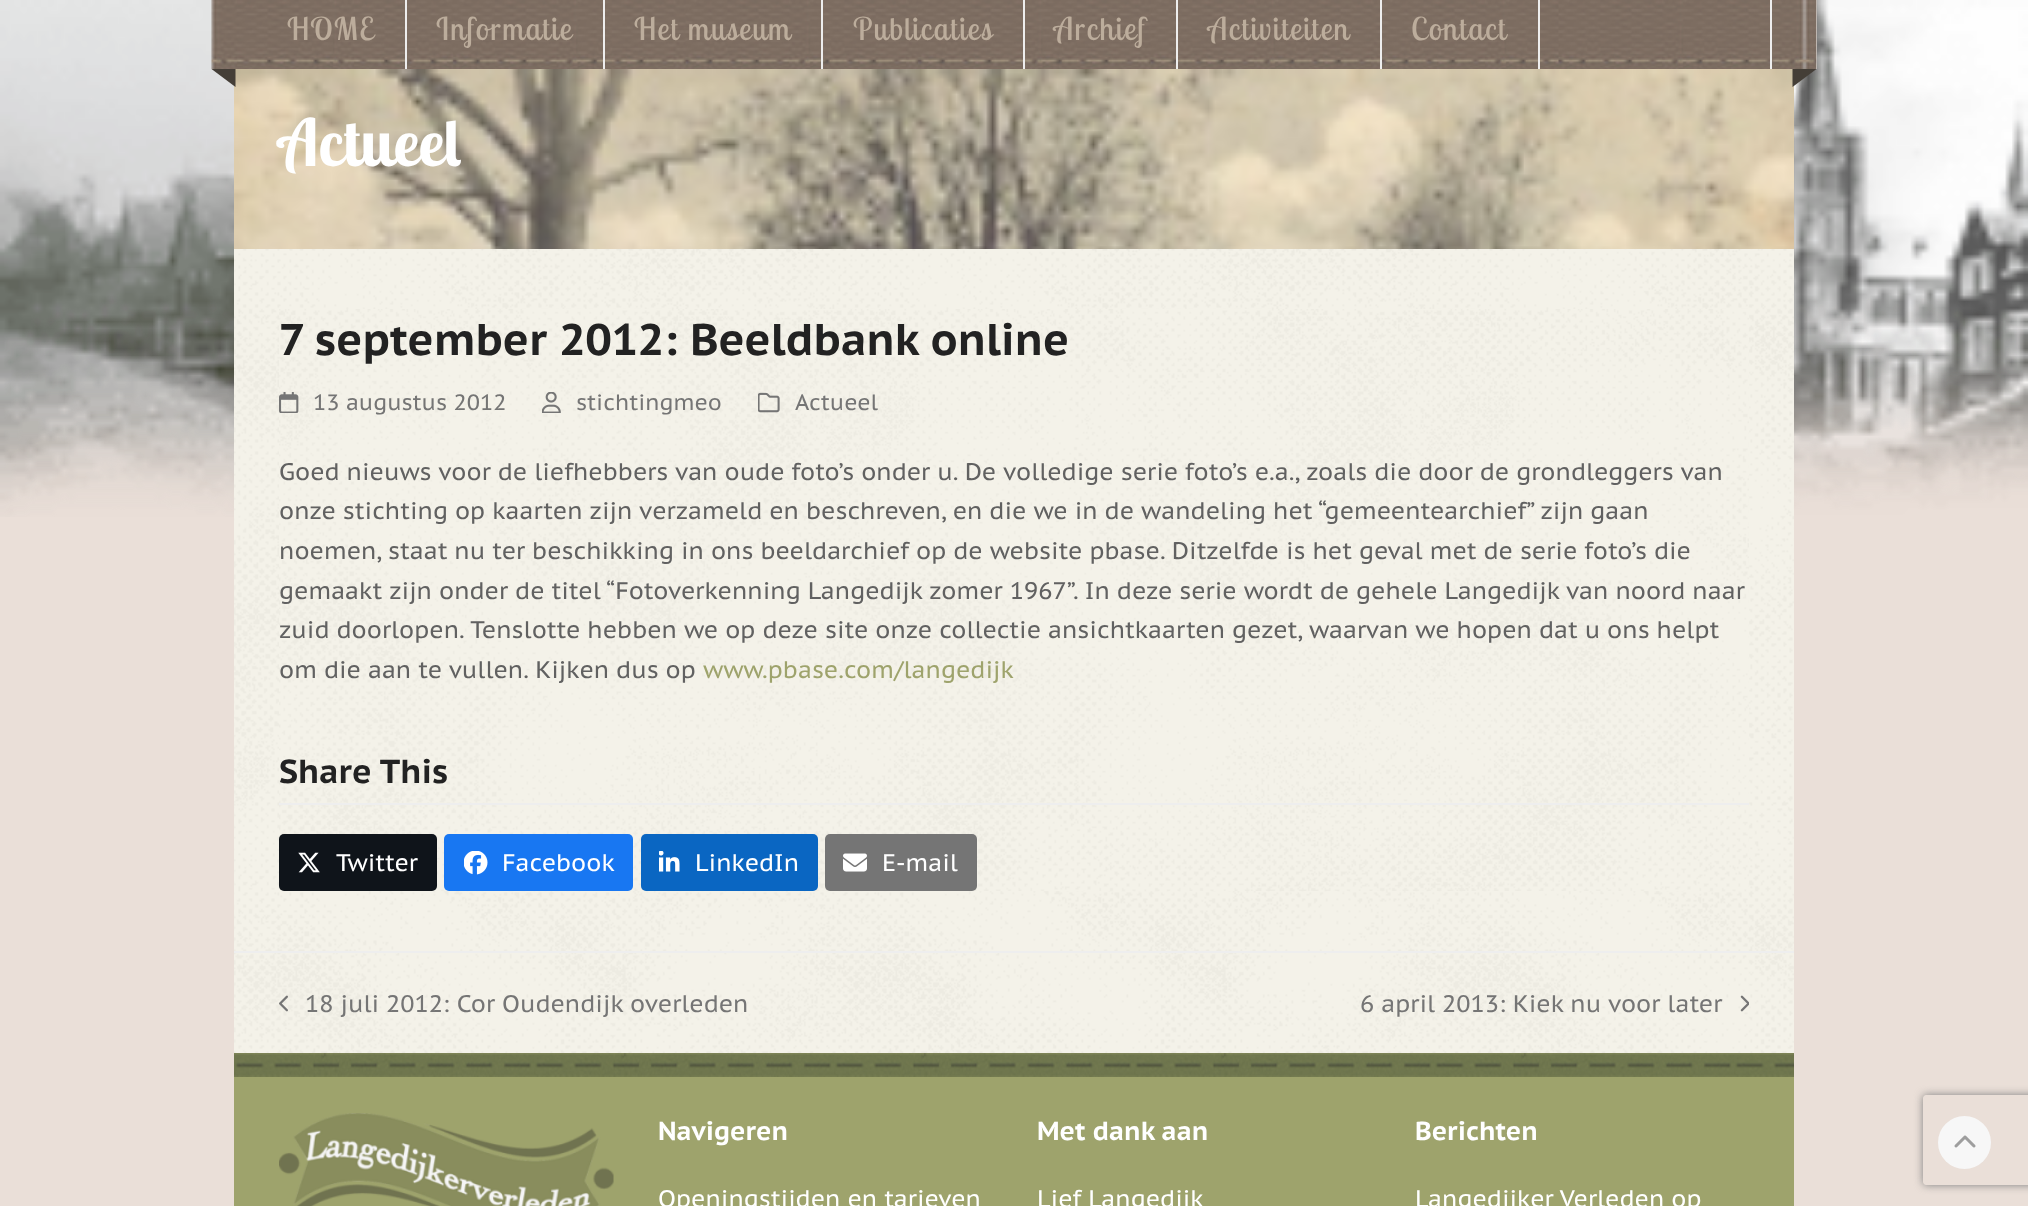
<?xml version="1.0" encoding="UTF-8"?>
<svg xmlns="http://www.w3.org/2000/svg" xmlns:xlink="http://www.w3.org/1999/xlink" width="2028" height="1206">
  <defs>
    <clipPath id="clip1"><path d="M 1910 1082 h 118 v 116 h -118 z m 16 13 h 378 c 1.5 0 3 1.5 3 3 v 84 c 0 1.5 -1.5 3 -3 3 h -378 c -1.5 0 -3 -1.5 -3 -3 v -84 c 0 -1.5 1.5 -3 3 -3 z" clip-rule="evenodd" /></clipPath>
  </defs>
  <rect width="100%" height="100%" fill="#eadfd8" />
  <image x="0" y="0" width="2028" height="517" xlink:href="image1.png" />
  <rect x="212" width="1605" height="69" fill="#ffffff" />
  <image x="211" y="0" width="1606" height="69" xlink:href="image2.png" />
  <rect x="1770" width="2" height="69" fill="#eeeeee" />
  <rect x="405" width="2" height="69" fill="#eeeeee" />
  <rect x="603" width="2" height="69" fill="#eeeeee" />
  <rect x="821" width="2" height="69" fill="#eeeeee" />
  <rect x="1023" width="2" height="69" fill="#eeeeee" />
  <rect x="1176" width="2" height="69" fill="#eeeeee" />
  <rect x="1380" width="2" height="69" fill="#eeeeee" />
  <rect x="1538" width="2" height="69" fill="#eeeeee" />
  <image x="234" y="69" width="1560" height="180" xlink:href="image4.png" />
  <path d="M 235.5 69 v 18 l -24 -18 z" fill="#443e37" />
  <path d="M 1792.5 69 h 24 l -24 18 z" fill="#443e37" />
  <image x="234" y="249" width="1560" height="804" xlink:href="image3.png" />
  <image x="279" y="309" width="1470" height="582" xlink:href="image5.png" />
  <image x="279" y="392" width="20" height="21" xlink:href="image6.png" />
  <image x="542" y="392" width="19" height="21" xlink:href="image7.png" />
  <image x="758" y="392" width="22" height="21" xlink:href="image8.png" />
  <rect x="279" y="803" width="1470" height="2" fill="#eeeeee" />
  <rect x="279" y="834" width="158" height="57" rx="5" fill="#0f141a" />
  <image x="298" y="852" width="22" height="21" xlink:href="image9.png" />
  <rect x="444" y="834" width="189" height="57" rx="5" fill="#1877f2" />
  <image x="464" y="851" width="24" height="24" xlink:href="image10.png" />
  <rect x="641" y="834" width="177" height="57" rx="5" fill="#0a66c2" />
  <image x="659" y="851" width="21" height="21" xlink:href="image11.png" />
  <rect x="825" y="834" width="152" height="57" rx="5" fill="#757575" />
  <image x="843" y="853" width="24" height="19" xlink:href="image12.png" />
  <rect x="234" y="951" width="1560" height="2" fill="#eeeeee" />
  <image x="279" y="995" width="9" height="17" xlink:href="image13.png" />
  <image x="1740" y="995" width="9" height="17" xlink:href="image14.png" />
  <rect x="234" y="1053" width="1560" height="153" fill="#9ea36c" />
  <image x="234" y="1053" width="1560" height="24" xlink:href="image15.png" />
  <image x="279" y="1113" width="335" height="93" xlink:href="image16.png" />
  <g clip-path="url(#clip1)">
    <rect x="1923" y="1095" width="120" height="90" rx="3" fill="#808080" filter="blur(4px)" />
  </g>
  <circle cx="1964.5" cy="1142.5" r="26.5" fill="#f7f7f7" />
  <image x="1954" y="1135" width="22" height="13" xlink:href="image17.png" />
  <text x="287" y="40" style="font-family: Lobster Two; font-size: 31.5px; letter-spacing: 1.5px; fill: #bcad9c">HOME</text>
  <text x="436" y="40" style="font-family: Lobster Two; font-size: 31.5px; letter-spacing: 1.5px; fill: #bcad9c">Informatie</text>
  <text x="634" y="40" style="font-family: Lobster Two; font-size: 31.5px; letter-spacing: 1.5px; fill: #bcad9c">Het museum</text>
  <text x="853" y="40" style="font-family: Lobster Two; font-size: 31.5px; letter-spacing: 1.5px; fill: #bcad9c">Publicaties</text>
  <text x="1054" y="40" style="font-family: Lobster Two; font-size: 31.5px; letter-spacing: 1.5px; fill: #bcad9c">Archief</text>
  <text x="1208" y="40" style="font-family: Lobster Two; font-size: 31.5px; letter-spacing: 1.5px; fill: #bcad9c">Activiteiten</text>
  <text x="1411" y="40" style="font-family: Lobster Two; font-size: 31.5px; letter-spacing: 1.5px; fill: #bcad9c">Contact</text>
  <text x="279" y="166" style="font-family: Lobster Two; font-size: 65px; font-weight: bold; fill: #ffffff">Actueel</text>
  <text x="279" y="355" style="font-family: PT Sans Caption; font-size: 44.25px; font-weight: bold; fill: #222222">7 september 2012: Beeldbank online</text>
  <text x="313" y="410" style="font-family: PT Sans Caption; font-size: 22.25px; fill: #757575">13 augustus 2012</text>
  <text x="576" y="410" style="font-family: PT Sans Caption; font-size: 22.25px; fill: #757575">stichtingmeo</text>
  <text x="795" y="410" style="font-family: PT Sans Caption; font-size: 22.25px; fill: #757575">Actueel</text>
  <text x="279" y="480" style="font-family: PT Sans Caption; font-size: 24px; fill: #616161">Goed nieuws voor de liefhebbers van oude foto’s onder u. De volledige serie foto’s e.a., zoals die door de grondleggers van</text>
  <text x="279" y="519" style="font-family: PT Sans Caption; font-size: 24px; fill: #616161">onze stichting op kaarten zijn verzameld en beschreven, en die we in de wandeling het “gemeentearchief” zijn gaan</text>
  <text x="279" y="559" style="font-family: PT Sans Caption; font-size: 24px; fill: #616161">noemen, staat nu ter beschikking in ons beeldarchief op de website pbase. Ditzelfde is het geval met de serie foto’s die</text>
  <text x="279" y="599" style="font-family: PT Sans Caption; font-size: 24px; fill: #616161">gemaakt zijn onder de titel “Fotoverkenning Langedijk zomer 1967”. In deze serie wordt de gehele Langedijk van noord naar</text>
  <text x="279" y="638" style="font-family: PT Sans Caption; font-size: 24px; fill: #616161">zuid doorlopen. Tenslotte hebben we op deze site onze collectie ansichtkaarten gezet, waarvan we hopen dat u ons helpt</text>
  <text x="279" y="678" style="font-family: PT Sans Caption; font-size: 24px; fill: #616161">om die aan te vullen. Kijken dus op</text>
  <text x="703" y="678" style="font-family: PT Sans Caption; font-size: 24px; fill: #9ea36c">www.pbase.com/langedijk</text>
  <text x="279" y="783" style="font-family: PT Sans Caption; font-size: 33.25px; font-weight: bold; fill: #222222">Share This</text>
  <text x="336" y="871" style="font-family: PT Sans Caption; font-size: 24px; fill: #ffffff">Twitter</text>
  <text x="502" y="871" style="font-family: PT Sans Caption; font-size: 24px; fill: #ffffff">Facebook</text>
  <text x="695" y="871" style="font-family: PT Sans Caption; font-size: 24px; fill: #ffffff">LinkedIn</text>
  <text x="882" y="871" style="font-family: PT Sans Caption; font-size: 24px; fill: #ffffff">E-mail</text>
  <text x="305" y="1012" style="font-family: PT Sans Caption; font-size: 24px; fill: #757575">18 juli 2012: Cor Oudendijk overleden</text>
  <text x="1360" y="1012" style="font-family: PT Sans Caption; font-size: 24px; fill: #757575">6 april 2013: Kiek nu voor later</text>
  <text x="658" y="1140" style="font-family: PT Sans Caption; font-size: 26px; font-weight: bold; fill: #ffffff">Navigeren</text>
  <text x="658" y="1207" style="font-family: PT Sans Caption; font-size: 24px; fill: #ffffff">Openingstijden en tarieven</text>
  <text x="1037" y="1140" style="font-family: PT Sans Caption; font-size: 26px; font-weight: bold; fill: #ffffff">Met dank aan</text>
  <text x="1037" y="1207" style="font-family: PT Sans Caption; font-size: 24px; fill: #ffffff">Lief Langedijk</text>
  <text x="1415" y="1140" style="font-family: PT Sans Caption; font-size: 26px; font-weight: bold; fill: #ffffff">Berichten</text>
  <text x="1415" y="1207" style="font-family: PT Sans Caption; font-size: 24px; fill: #ffffff">Langedijker Verleden op</text>
</svg>
